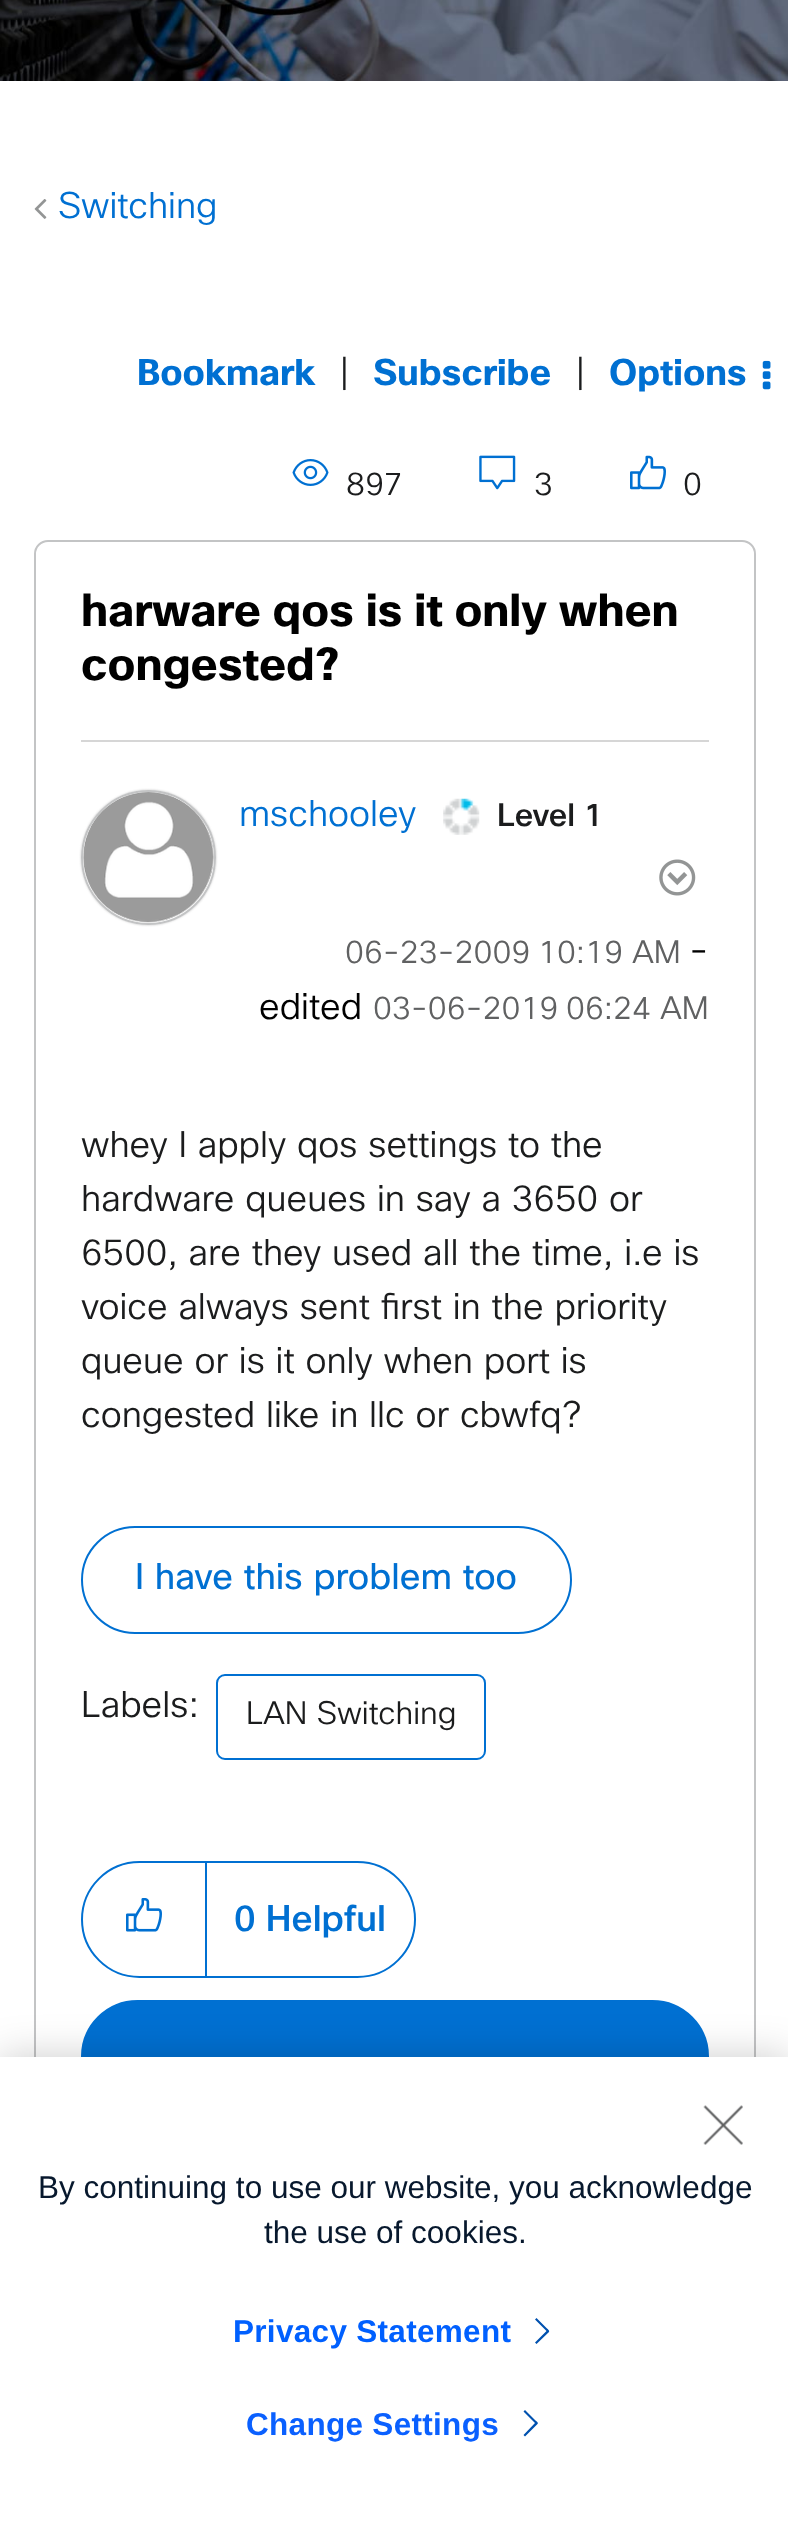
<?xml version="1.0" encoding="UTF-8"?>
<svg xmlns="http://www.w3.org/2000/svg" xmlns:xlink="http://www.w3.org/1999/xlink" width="788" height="2527">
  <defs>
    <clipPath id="clip1"><path d="M 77 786 h 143 v 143 h -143 z m 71.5 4 c 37.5 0 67.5 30 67.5 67.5 c 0 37.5 -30 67.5 -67.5 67.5 c -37.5 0 -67.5 -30 -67.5 -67.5 c 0 -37.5 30 -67.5 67.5 -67.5 z" clip-rule="evenodd" /></clipPath>
  </defs>
  <rect width="100%" height="100%" fill="#ffffff" />
  <image x="0" y="0" width="788" height="81" xlink:href="image1.png" />
  <image x="34" y="199" width="13" height="20" xlink:href="image2.png" />
  <image x="762" y="360" width="9" height="30" xlink:href="image3.png" />
  <image x="292" y="459" width="37" height="27" xlink:href="image4.png" />
  <image x="479" y="455" width="37" height="35" xlink:href="image5.png" />
  <image x="630" y="455" width="36" height="35" xlink:href="image6.png" />
  <rect x="35" y="541" width="720" height="1643" rx="13" fill="none" stroke="#c3c4c5" stroke-width="2" />
  <rect x="81" y="740" width="628" height="2" fill="#d6d6d6" />
  <g clip-path="url(#clip1)">
    <rect x="81" y="790" width="135" height="135" rx="67.5" fill="#c4c4c4" filter="blur(1px)" />
  </g>
  <circle cx="148.5" cy="857.5" r="66.5" fill="none" stroke="#c3c4c5" stroke-width="2" />
  <image x="83" y="792" width="131" height="131" xlink:href="image7.png" />
  <image x="443" y="798" width="37" height="37" xlink:href="image8.png" />
  <image x="659" y="859" width="37" height="37" xlink:href="image9.png" />
  <rect x="82" y="1527" width="489" height="106" rx="53" fill="none" stroke="#0070d2" stroke-width="2" />
  <rect x="217" y="1675" width="268" height="84" rx="8" fill="none" stroke="#0070d2" stroke-width="2" />
  <rect x="82" y="1862" width="333" height="115" rx="57.5" fill="none" stroke="#0070d2" stroke-width="2" />
  <image x="126" y="1898" width="36" height="34" xlink:href="image10.png" />
  <rect x="205" y="1863" width="2" height="113" fill="#0070d2" />
  <rect x="82" y="2001" width="626" height="111" rx="55.5" fill="#0070d2" stroke="#0070d2" stroke-width="2" />
  <rect y="2057" width="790" height="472" fill="#000000" fill-opacity="0.2" filter="blur(20px)" />
  <rect y="2057" width="788" height="470" fill="#ffffff" />
  <image x="703" y="2105" width="40" height="40" xlink:href="image11.png" />
  <path d="M 536.5 2344 l -1.5 -1.5 l 11.5 -11.5 l -11.5 -11.5 l 1.5 -1.5 l 10 10 c 0.5 0.5 3.5 2.5 2.5 4 z" fill="#0051af" />
  <path d="M 525 2436.5 l -1.5 -1.5 l 11.5 -12 l -11.5 -11.5 l 1.5 -1.5 l 10.5 10.5 c 0.5 0.5 3.5 2.5 2 3.5 z" fill="#0051af" />
  <text x="58" y="218" style="font-family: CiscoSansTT; font-size: 36px; font-weight: 300; fill: #0070d2">Switching</text>
  <text x="137" y="385" style="font-family: CiscoSansTT; font-size: 36px; font-weight: bold; fill: #0070d2">Bookmark</text>
  <text x="338" y="385" style="font-family: CiscoSansTT; font-size: 36px; font-weight: 300; fill: #1b1c1d">|</text>
  <text x="373" y="385" style="font-family: CiscoSansTT; font-size: 36px; font-weight: bold; fill: #0070d2">Subscribe</text>
  <text x="574" y="385" style="font-family: CiscoSansTT; font-size: 36px; font-weight: 300; fill: #1b1c1d">|</text>
  <text x="609" y="385" style="font-family: CiscoSansTT; font-size: 36px; font-weight: bold; fill: #0070d2">Options</text>
  <text x="346" y="495" style="font-family: CiscoSansTT; font-size: 31.5px; font-weight: 300; fill: #1b1c1d">897</text>
  <text x="534" y="495" style="font-family: CiscoSansTT; font-size: 31.5px; font-weight: 300; fill: #1b1c1d">3</text>
  <text x="683" y="495" style="font-family: CiscoSansTT; font-size: 31.5px; font-weight: 300; fill: #1b1c1d">0</text>
  <text x="81" y="626" style="font-family: CiscoSansTT; font-size: 45px; font-weight: bold; fill: #000000">harware qos is it only when</text>
  <text x="81" y="680" style="font-family: CiscoSansTT; font-size: 45px; font-weight: bold; fill: #000000">congested?</text>
  <text x="239" y="826" style="font-family: CiscoSansTT; font-size: 36px; font-weight: 300; fill: #0070d2">mschooley</text>
  <text x="497" y="826" style="font-family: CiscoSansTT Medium; font-size: 31.5px; font-weight: 500; fill: #1b1c1d">Level 1</text>
  <text x="345" y="963" style="font-family: CiscoSansTT; font-size: 31.5px; font-weight: 300; fill: #606162">06-23-2009</text>
  <text x="538" y="963" style="font-family: CiscoSansTT; font-size: 31.5px; font-weight: 300; fill: #606162">10:19 AM</text>
  <text x="689" y="963" style="font-family: CiscoSansTT; font-size: 36px; font-weight: 300; fill: #000000">-</text>
  <text x="259" y="1019" style="font-family: CiscoSansTT; font-size: 36px; font-weight: 300; fill: #000000">edited</text>
  <text x="373" y="1019" style="font-family: CiscoSansTT; font-size: 31.5px; font-weight: 300; fill: #606162">03-06-2019</text>
  <text x="566" y="1019" style="font-family: CiscoSansTT; font-size: 31.5px; font-weight: 300; fill: #606162">06:24 AM</text>
  <text x="81" y="1157" style="font-family: CiscoSansTT; font-size: 36px; font-weight: 300; fill: #1b1c1d">whey I apply qos settings to the</text>
  <text x="81" y="1211" style="font-family: CiscoSansTT; font-size: 36px; font-weight: 300; fill: #1b1c1d">hardware queues in say a 3650 or</text>
  <text x="81" y="1265" style="font-family: CiscoSansTT; font-size: 36px; font-weight: 300; fill: #1b1c1d">6500, are they used all the time, i.e is</text>
  <text x="81" y="1319" style="font-family: CiscoSansTT; font-size: 36px; font-weight: 300; fill: #1b1c1d">voice always sent first in the priority</text>
  <text x="81" y="1373" style="font-family: CiscoSansTT; font-size: 36px; font-weight: 300; fill: #1b1c1d">queue or is it only when port is</text>
  <text x="81" y="1427" style="font-family: CiscoSansTT; font-size: 36px; font-weight: 300; fill: #1b1c1d">congested like in llc or cbwfq?</text>
  <text x="135" y="1589" style="font-family: CiscoSansTT; font-size: 36px; fill: #0070d2">I have this problem too</text>
  <text x="81" y="1717" style="font-family: CiscoSansTT; font-size: 36px; font-weight: 300; fill: #1b1c1d">Labels:</text>
  <text x="246" y="1724" style="font-family: CiscoSansTT; font-size: 31.5px; font-weight: 300; fill: #1b1c1d">LAN Switching</text>
  <text x="234" y="1931" style="font-family: CiscoSansTT Medium; font-size: 36px; font-weight: 500; fill: #0070d2">0 Helpful</text>
  <text x="38" y="2198" style="font-family: Liberation Sans; font-size: 31.5px; fill: #07182d">By continuing to use our website, you acknowledge</text>
  <text x="264" y="2243" style="font-family: Liberation Sans; font-size: 31.5px; fill: #07182d">the use of cookies.</text>
  <text x="233" y="2342" style="font-family: Liberation Sans; font-size: 31.5px; font-weight: bold; letter-spacing: 0.3px; fill: #0060ff">Privacy Statement</text>
  <text x="246" y="2435" style="font-family: Liberation Sans; font-size: 31.5px; font-weight: bold; letter-spacing: 0.3px; fill: #0a60ff">Change Settings</text>
</svg>
